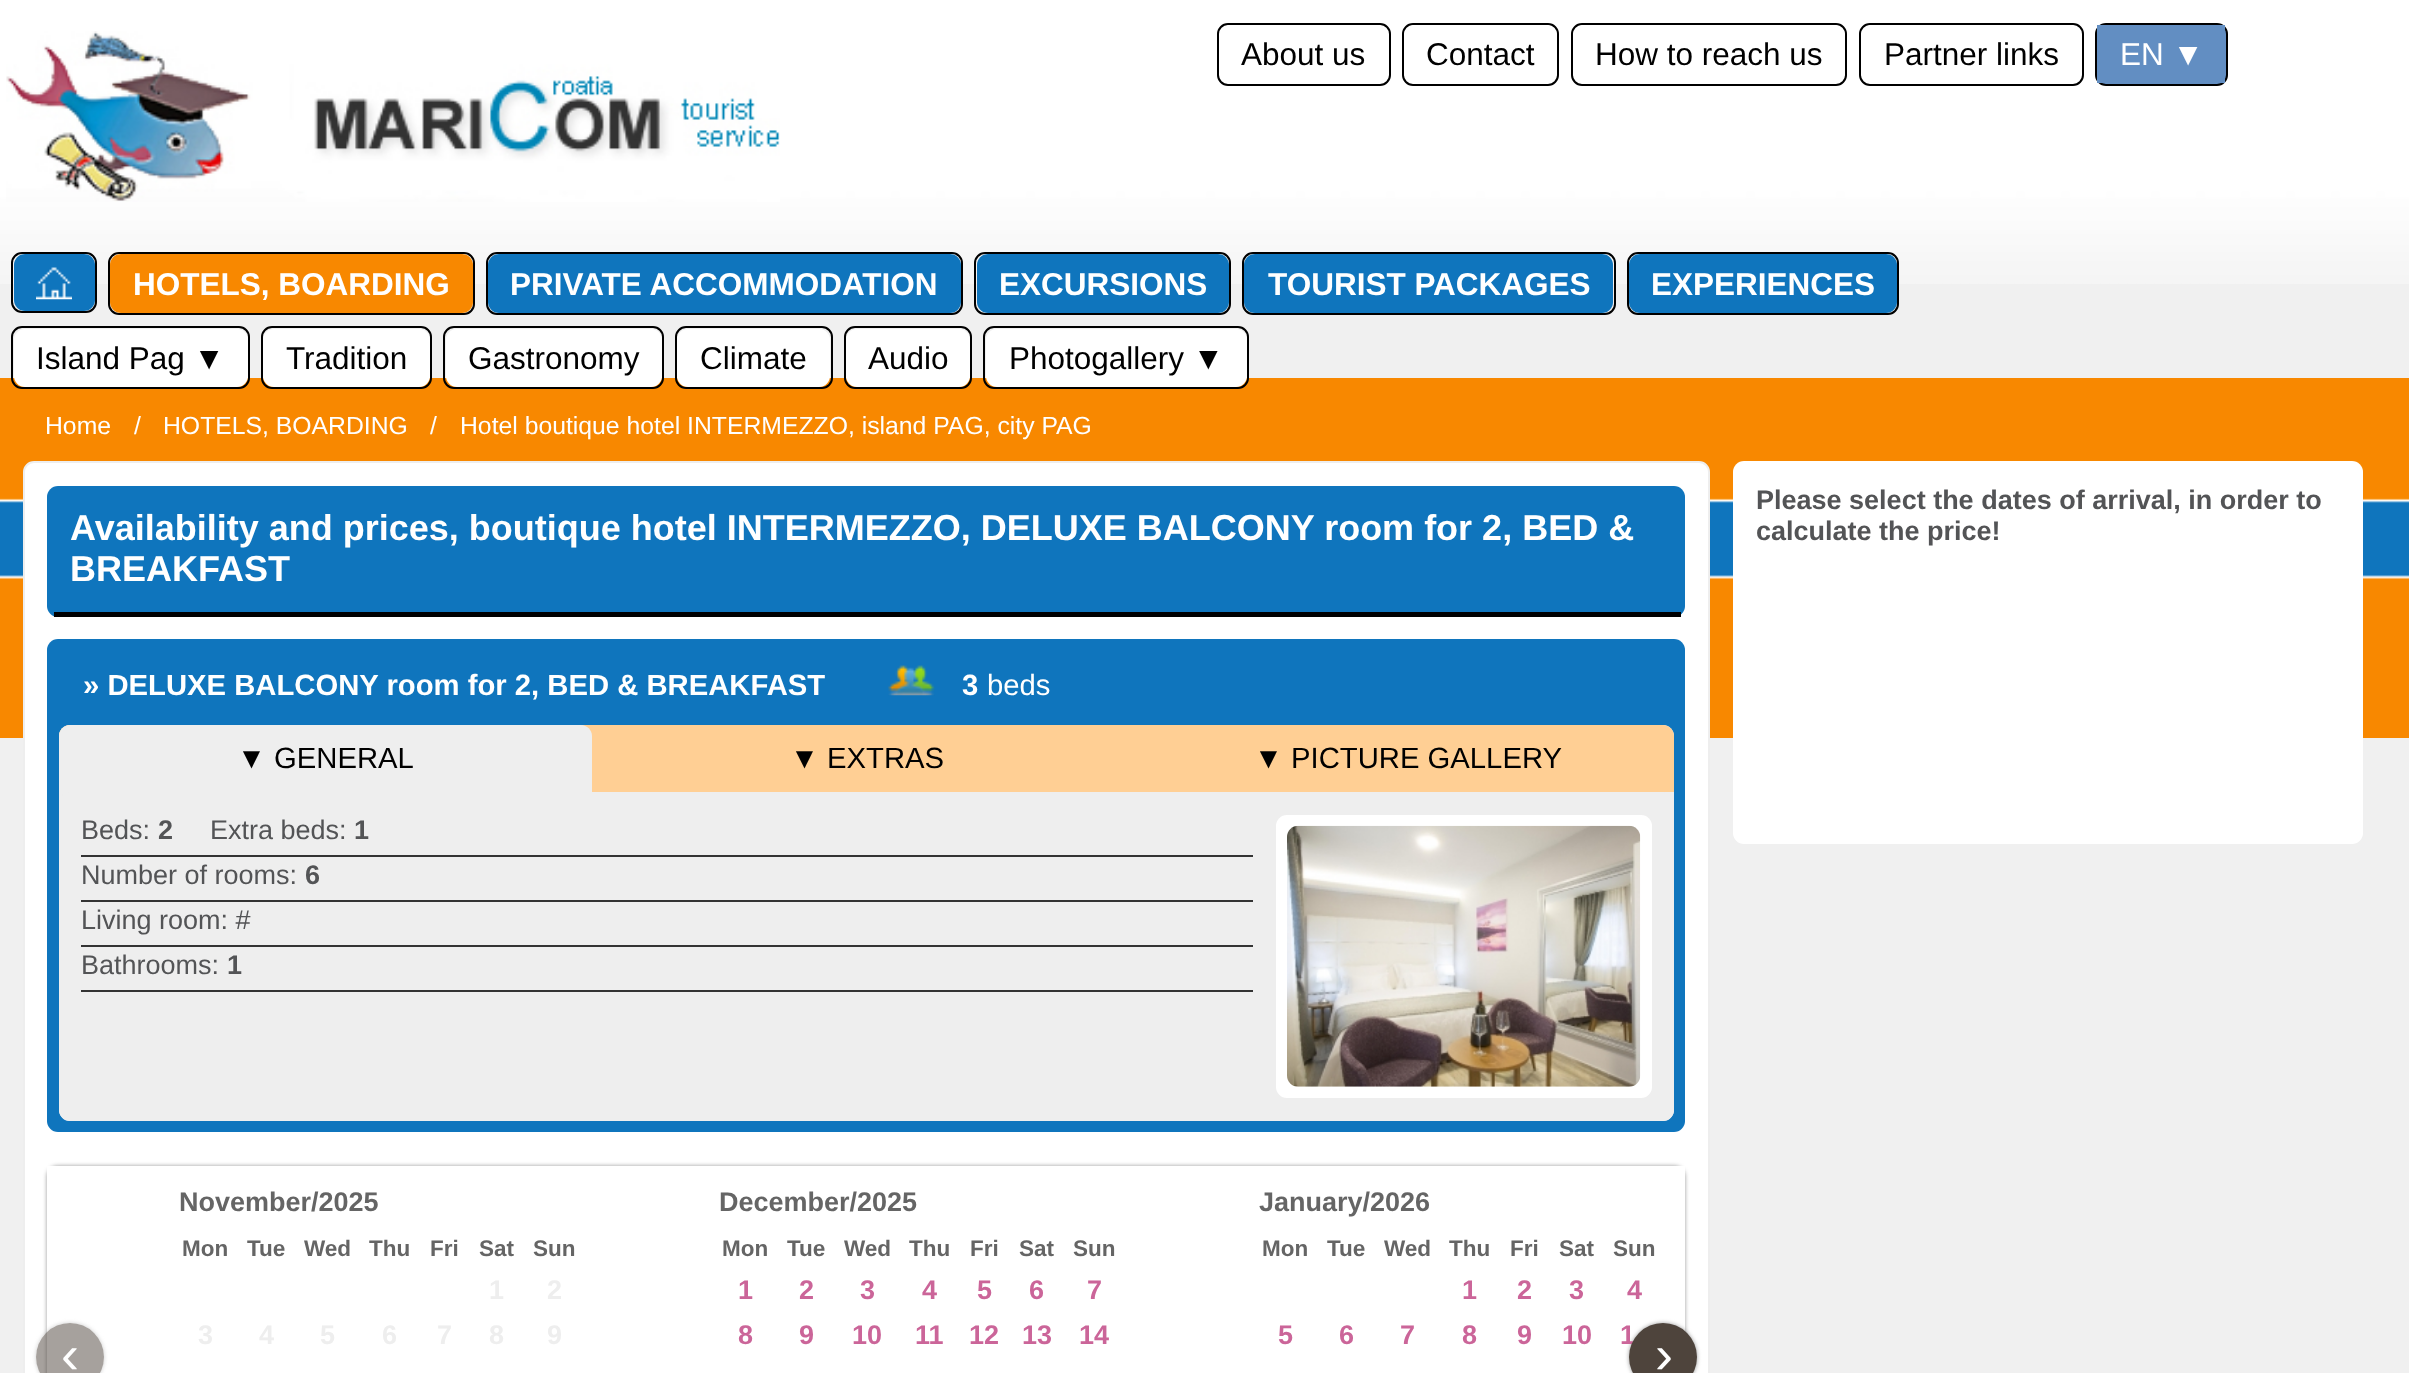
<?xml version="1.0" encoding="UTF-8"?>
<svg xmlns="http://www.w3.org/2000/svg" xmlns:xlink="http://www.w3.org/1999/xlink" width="2409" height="1373">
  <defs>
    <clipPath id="clip1"><path d="M 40 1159 h 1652 v 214 h -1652 z m 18 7 h 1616 c 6 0 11 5 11 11 v 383 c 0 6 -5 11 -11 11 h -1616 c -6 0 -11 -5 -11 -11 v -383 c 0 -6 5 -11 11 -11 z" clip-rule="evenodd" /></clipPath>
    <clipPath id="clip2"><path d="M 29 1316 h 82 v 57 h -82 z m 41 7 c 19 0 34 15 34 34 c 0 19 -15 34 -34 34 c -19 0 -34 -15 -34 -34 c 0 -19 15 -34 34 -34 z" clip-rule="evenodd" /></clipPath>
  </defs>
  <rect width="100%" height="100%" fill="#f0f0f0" />
  <image x="0" y="0" width="2409" height="284" xlink:href="image1.png" />
  <image x="6" y="31" width="774" height="171" xlink:href="image2.png" />
  <rect x="1218" y="24" width="172" height="61" rx="10" fill="none" stroke="#000000" stroke-width="2" />
  <rect x="1220" y="25" width="168" height="58" rx="11" fill="#ffffff" />
  <rect x="1403" y="24" width="155" height="61" rx="10" fill="none" stroke="#000000" stroke-width="2" />
  <rect x="1404" y="25" width="153" height="58" rx="11" fill="#ffffff" />
  <rect x="1572" y="24" width="274" height="61" rx="10" fill="none" stroke="#000000" stroke-width="2" />
  <rect x="1573" y="25" width="272" height="58" rx="11" fill="#ffffff" />
  <rect x="1860" y="24" width="223" height="61" rx="10" fill="none" stroke="#000000" stroke-width="2" />
  <rect x="1861" y="25" width="220" height="58" rx="11" fill="#ffffff" />
  <rect x="2096" y="24" width="131" height="61" rx="10" fill="#628ec2" stroke="#000000" stroke-width="2" />
  <rect x="2097" y="25" width="128" height="58" fill="#628ec2" />
  <rect x="12" y="253" width="84" height="59" rx="10" fill="none" stroke="#000000" stroke-width="2" />
  <rect x="14" y="254" width="81" height="57" rx="11" fill="#0f75bd" />
  <image x="36" y="267" width="36" height="33" xlink:href="image3.png" />
  <rect x="109" y="253" width="365" height="61" rx="10" fill="none" stroke="#000000" stroke-width="2" />
  <rect x="110" y="254" width="363" height="59" rx="11" fill="#f88800" />
  <rect x="487" y="253" width="475" height="61" rx="10" fill="none" stroke="#000000" stroke-width="2" />
  <rect x="488" y="254" width="473" height="59" rx="11" fill="#0f75bd" />
  <rect x="975" y="253" width="255" height="61" rx="10" fill="none" stroke="#000000" stroke-width="2" />
  <rect x="977" y="254" width="252" height="59" rx="11" fill="#0f75bd" />
  <rect x="1243" y="253" width="372" height="61" rx="10" fill="none" stroke="#000000" stroke-width="2" />
  <rect x="1244" y="254" width="369" height="59" rx="11" fill="#0f75bd" />
  <rect x="1628" y="253" width="270" height="61" rx="10" fill="none" stroke="#000000" stroke-width="2" />
  <rect x="1629" y="254" width="268" height="59" rx="11" fill="#0f75bd" />
  <image x="0" y="378" width="2409" height="360" xlink:href="image4.png" />
  <rect x="12" y="327" width="237" height="61" rx="10" fill="none" stroke="#000000" stroke-width="2" />
  <rect x="14" y="329" width="234" height="58" rx="11" fill="#ffffff" />
  <rect x="262" y="327" width="169" height="61" rx="10" fill="none" stroke="#000000" stroke-width="2" />
  <rect x="263" y="329" width="167" height="58" rx="11" fill="#ffffff" />
  <rect x="444" y="327" width="219" height="61" rx="10" fill="none" stroke="#000000" stroke-width="2" />
  <rect x="446" y="329" width="216" height="58" rx="11" fill="#ffffff" />
  <rect x="676" y="327" width="156" height="61" rx="10" fill="none" stroke="#000000" stroke-width="2" />
  <rect x="677" y="329" width="153" height="58" rx="11" fill="#ffffff" />
  <rect x="845" y="327" width="126" height="61" rx="10" fill="none" stroke="#000000" stroke-width="2" />
  <rect x="846" y="329" width="124" height="58" rx="11" fill="#ffffff" />
  <rect x="984" y="327" width="264" height="61" rx="10" fill="none" stroke="#000000" stroke-width="2" />
  <rect x="986" y="329" width="261" height="58" rx="11" fill="#ffffff" />
  <rect x="24" y="462" width="1685" height="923" rx="10" fill="#ffffff" stroke="#eeeeee" stroke-width="2" />
  <rect x="47" y="486" width="1638" height="131" rx="11" fill="#0f75bd" />
  <rect x="54" y="612" width="1627" height="5" fill="#000000" />
  <rect x="47" y="639" width="1638" height="493" rx="11" fill="#0f75bd" />
  <image x="888" y="665" width="47" height="31" xlink:href="image5.png" />
  <rect x="59" y="725" width="1615" height="396" rx="11" fill="#eeeeee" />
  <path d="M 70 725 h 1593 c 6 0 11 5 11 11 v 56 h -1615 v -56 c 0 -6 5 -11 11 -11 z" fill="#ffcf94" />
  <path d="M 70 725 h 511 c 6 0 11 5 11 11 v 56 h -533 v -56 c 0 -6 5 -11 11 -11 z" fill="#eeeeee" />
  <rect x="59" y="792" width="1615" height="329" rx="11" fill="#eeeeee" />
  <rect x="81" y="855" width="1172" height="2" fill="#333333" />
  <rect x="81" y="900" width="1172" height="2" fill="#333333" />
  <rect x="81" y="945" width="1172" height="2" fill="#333333" />
  <rect x="81" y="990" width="1172" height="2" fill="#333333" />
  <rect x="1276" y="815" width="376" height="283" rx="11" fill="#ffffff" />
  <image x="1287" y="825" width="354" height="262" xlink:href="image6.png" />
  <g clip-path="url(#clip1)">
    <rect x="47" y="1166" width="1638" height="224" rx="11" fill="#999999" filter="blur(2px)" />
  </g>
  <rect x="58.5" y="1177.5" width="1615" height="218" fill="none" stroke="#ffffff" stroke-width="23" />
  <g clip-path="url(#clip2)">
    <rect x="36" y="1323" width="68" height="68" rx="34" fill="#999999" fill-opacity="0.5" filter="blur(2px)" />
  </g>
  <circle cx="70" cy="1357" r="34" fill="#4e443c" fill-opacity="0.5" />
  <rect x="1629" y="1323" width="68" height="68" rx="34" fill="#999999" filter="blur(2px)" />
  <rect x="1733" y="461" width="630" height="383" rx="11" fill="#ffffff" />
  <text x="1241" y="65" style="font-family: Liberation Sans; font-size: 31.5px; fill: #000000">About us</text>
  <text x="1426" y="65" style="font-family: Liberation Sans; font-size: 31.5px; fill: #000000">Contact</text>
  <text x="1595" y="65" style="font-family: Liberation Sans; font-size: 31.5px; fill: #000000">How to reach us</text>
  <text x="1884" y="65" style="font-family: Liberation Sans; font-size: 31.5px; fill: #000000">Partner links</text>
  <text x="2120" y="65" style="font-family: Liberation Sans; font-size: 31.5px; fill: #ffffff">EN ▼</text>
  <text x="133" y="295" style="font-family: Liberation Sans; font-size: 31.5px; font-weight: bold; fill: #ffffff">HOTELS, BOARDING</text>
  <text x="510" y="295" style="font-family: Liberation Sans; font-size: 31.5px; font-weight: bold; fill: #ffffff">PRIVATE ACCOMMODATION</text>
  <text x="999" y="295" style="font-family: Liberation Sans; font-size: 31.5px; font-weight: bold; fill: #ffffff">EXCURSIONS</text>
  <text x="1268" y="295" style="font-family: Liberation Sans; font-size: 31.5px; font-weight: bold; fill: #ffffff">TOURIST PACKAGES</text>
  <text x="1651" y="295" style="font-family: Liberation Sans; font-size: 31.5px; font-weight: bold; fill: #ffffff">EXPERIENCES</text>
  <text x="36" y="369" style="font-family: Liberation Sans; font-size: 31.5px; fill: #000000">Island Pag ▼</text>
  <text x="286" y="369" style="font-family: Liberation Sans; font-size: 31.5px; fill: #000000">Tradition</text>
  <text x="468" y="369" style="font-family: Liberation Sans; font-size: 31.5px; fill: #000000">Gastronomy</text>
  <text x="700" y="369" style="font-family: Liberation Sans; font-size: 31.5px; fill: #000000">Climate</text>
  <text x="868" y="369" style="font-family: Liberation Sans; font-size: 31.5px; fill: #000000">Audio</text>
  <text x="1009" y="369" style="font-family: Liberation Sans; font-size: 31.5px; fill: #000000">Photogallery ▼</text>
  <text x="45" y="434" style="font-family: Liberation Sans; font-size: 24.75px; fill: #ffffff">Home</text>
  <text x="134" y="434" style="font-family: Liberation Sans; font-size: 24.75px; fill: #ffffff">/</text>
  <text x="163" y="434" style="font-family: Liberation Sans; font-size: 24.75px; fill: #ffffff">HOTELS, BOARDING</text>
  <text x="430" y="434" style="font-family: Liberation Sans; font-size: 24.75px; fill: #ffffff">/</text>
  <text x="460" y="434" style="font-family: Liberation Sans; font-size: 24.75px; fill: #ffffff">Hotel boutique hotel INTERMEZZO, island PAG, city PAG</text>
  <text x="70" y="540" style="font-family: Liberation Sans; font-size: 36px; font-weight: bold; fill: #ffffff">Availability and prices, boutique hotel INTERMEZZO, DELUXE BALCONY room for 2, BED &amp;</text>
  <text x="70" y="581" style="font-family: Liberation Sans; font-size: 36px; font-weight: bold; fill: #ffffff">BREAKFAST</text>
  <text x="83" y="695" style="font-family: Liberation Sans; font-size: 29.25px; font-weight: bold; fill: #ffffff">» DELUXE BALCONY room for 2, BED &amp; BREAKFAST</text>
  <text x="962" y="695" style="font-family: Liberation Sans; font-size: 29.25px; font-weight: bold; fill: #ffffff">3</text>
  <text x="987" y="695" style="font-family: Liberation Sans; font-size: 29.25px; fill: #ffffff">beds</text>
  <text x="237" y="768" style="font-family: Liberation Sans; font-size: 29.25px; fill: #000000">▼ GENERAL</text>
  <text x="790" y="768" style="font-family: Liberation Sans; font-size: 29.25px; fill: #000000">▼ EXTRAS</text>
  <text x="1254" y="768" style="font-family: Liberation Sans; font-size: 29.25px; fill: #000000">▼ PICTURE GALLERY</text>
  <text x="81" y="839" style="font-family: Liberation Sans; font-size: 27px; fill: #535456">Beds:</text>
  <text x="158" y="839" style="font-family: Liberation Sans; font-size: 27px; font-weight: bold; fill: #535456">2</text>
  <text x="210" y="839" style="font-family: Liberation Sans; font-size: 27px; fill: #535456">Extra beds:</text>
  <text x="354" y="839" style="font-family: Liberation Sans; font-size: 27px; font-weight: bold; fill: #535456">1</text>
  <text x="81" y="884" style="font-family: Liberation Sans; font-size: 27px; fill: #535456">Number of rooms:</text>
  <text x="305" y="884" style="font-family: Liberation Sans; font-size: 27px; font-weight: bold; fill: #535456">6</text>
  <text x="81" y="929" style="font-family: Liberation Sans; font-size: 27px; fill: #535456">Living room: #</text>
  <text x="81" y="974" style="font-family: Liberation Sans; font-size: 27px; fill: #535456">Bathrooms:</text>
  <text x="227" y="974" style="font-family: Liberation Sans; font-size: 27px; font-weight: bold; fill: #535456">1</text>
  <text x="179" y="1211" style="font-family: Liberation Sans; font-size: 27px; font-weight: bold; fill: #656565">November/2025</text>
  <text x="182" y="1256" style="font-family: Liberation Sans; font-size: 22.5px; font-weight: bold; fill: #656565">Mon</text>
  <text x="247" y="1256" style="font-family: Liberation Sans; font-size: 22.5px; font-weight: bold; fill: #656565">Tue</text>
  <text x="304" y="1256" style="font-family: Liberation Sans; font-size: 22.5px; font-weight: bold; fill: #656565">Wed</text>
  <text x="369" y="1256" style="font-family: Liberation Sans; font-size: 22.5px; font-weight: bold; fill: #656565">Thu</text>
  <text x="430" y="1256" style="font-family: Liberation Sans; font-size: 22.5px; font-weight: bold; fill: #656565">Fri</text>
  <text x="479" y="1256" style="font-family: Liberation Sans; font-size: 22.5px; font-weight: bold; fill: #656565">Sat</text>
  <text x="533" y="1256" style="font-family: Liberation Sans; font-size: 22.5px; font-weight: bold; fill: #656565">Sun</text>
  <text x="489" y="1299" style="font-family: Liberation Sans; font-size: 27px; font-weight: bold; fill: #eeeeee">1</text>
  <text x="547" y="1299" style="font-family: Liberation Sans; font-size: 27px; font-weight: bold; fill: #eeeeee">2</text>
  <text x="198" y="1344" style="font-family: Liberation Sans; font-size: 27px; font-weight: bold; fill: #eeeeee">3</text>
  <text x="259" y="1344" style="font-family: Liberation Sans; font-size: 27px; font-weight: bold; fill: #eeeeee">4</text>
  <text x="320" y="1344" style="font-family: Liberation Sans; font-size: 27px; font-weight: bold; fill: #eeeeee">5</text>
  <text x="382" y="1344" style="font-family: Liberation Sans; font-size: 27px; font-weight: bold; fill: #eeeeee">6</text>
  <text x="437" y="1344" style="font-family: Liberation Sans; font-size: 27px; font-weight: bold; fill: #eeeeee">7</text>
  <text x="489" y="1344" style="font-family: Liberation Sans; font-size: 27px; font-weight: bold; fill: #eeeeee">8</text>
  <text x="547" y="1344" style="font-family: Liberation Sans; font-size: 27px; font-weight: bold; fill: #eeeeee">9</text>
  <text x="719" y="1211" style="font-family: Liberation Sans; font-size: 27px; font-weight: bold; fill: #656565">December/2025</text>
  <text x="722" y="1256" style="font-family: Liberation Sans; font-size: 22.5px; font-weight: bold; fill: #656565">Mon</text>
  <text x="787" y="1256" style="font-family: Liberation Sans; font-size: 22.5px; font-weight: bold; fill: #656565">Tue</text>
  <text x="844" y="1256" style="font-family: Liberation Sans; font-size: 22.5px; font-weight: bold; fill: #656565">Wed</text>
  <text x="909" y="1256" style="font-family: Liberation Sans; font-size: 22.5px; font-weight: bold; fill: #656565">Thu</text>
  <text x="970" y="1256" style="font-family: Liberation Sans; font-size: 22.5px; font-weight: bold; fill: #656565">Fri</text>
  <text x="1019" y="1256" style="font-family: Liberation Sans; font-size: 22.5px; font-weight: bold; fill: #656565">Sat</text>
  <text x="1073" y="1256" style="font-family: Liberation Sans; font-size: 22.5px; font-weight: bold; fill: #656565">Sun</text>
  <text x="738" y="1299" style="font-family: Liberation Sans; font-size: 27px; font-weight: bold; fill: #cb6599">1</text>
  <text x="799" y="1299" style="font-family: Liberation Sans; font-size: 27px; font-weight: bold; fill: #cb6599">2</text>
  <text x="860" y="1299" style="font-family: Liberation Sans; font-size: 27px; font-weight: bold; fill: #cb6599">3</text>
  <text x="922" y="1299" style="font-family: Liberation Sans; font-size: 27px; font-weight: bold; fill: #cb6599">4</text>
  <text x="977" y="1299" style="font-family: Liberation Sans; font-size: 27px; font-weight: bold; fill: #cb6599">5</text>
  <text x="1029" y="1299" style="font-family: Liberation Sans; font-size: 27px; font-weight: bold; fill: #cb6599">6</text>
  <text x="1087" y="1299" style="font-family: Liberation Sans; font-size: 27px; font-weight: bold; fill: #cb6599">7</text>
  <text x="738" y="1344" style="font-family: Liberation Sans; font-size: 27px; font-weight: bold; fill: #cb6599">8</text>
  <text x="799" y="1344" style="font-family: Liberation Sans; font-size: 27px; font-weight: bold; fill: #cb6599">9</text>
  <text x="852" y="1344" style="font-family: Liberation Sans; font-size: 27px; font-weight: bold; fill: #cb6599">10</text>
  <text x="915" y="1344" style="font-family: Liberation Sans; font-size: 27px; font-weight: bold; fill: #cb6599">11</text>
  <text x="969" y="1344" style="font-family: Liberation Sans; font-size: 27px; font-weight: bold; fill: #cb6599">12</text>
  <text x="1022" y="1344" style="font-family: Liberation Sans; font-size: 27px; font-weight: bold; fill: #cb6599">13</text>
  <text x="1079" y="1344" style="font-family: Liberation Sans; font-size: 27px; font-weight: bold; fill: #cb6599">14</text>
  <text x="1259" y="1211" style="font-family: Liberation Sans; font-size: 27px; font-weight: bold; fill: #656565">January/2026</text>
  <text x="1262" y="1256" style="font-family: Liberation Sans; font-size: 22.5px; font-weight: bold; fill: #656565">Mon</text>
  <text x="1327" y="1256" style="font-family: Liberation Sans; font-size: 22.5px; font-weight: bold; fill: #656565">Tue</text>
  <text x="1384" y="1256" style="font-family: Liberation Sans; font-size: 22.5px; font-weight: bold; fill: #656565">Wed</text>
  <text x="1449" y="1256" style="font-family: Liberation Sans; font-size: 22.5px; font-weight: bold; fill: #656565">Thu</text>
  <text x="1510" y="1256" style="font-family: Liberation Sans; font-size: 22.5px; font-weight: bold; fill: #656565">Fri</text>
  <text x="1559" y="1256" style="font-family: Liberation Sans; font-size: 22.5px; font-weight: bold; fill: #656565">Sat</text>
  <text x="1613" y="1256" style="font-family: Liberation Sans; font-size: 22.5px; font-weight: bold; fill: #656565">Sun</text>
  <text x="1462" y="1299" style="font-family: Liberation Sans; font-size: 27px; font-weight: bold; fill: #cb6599">1</text>
  <text x="1517" y="1299" style="font-family: Liberation Sans; font-size: 27px; font-weight: bold; fill: #cb6599">2</text>
  <text x="1569" y="1299" style="font-family: Liberation Sans; font-size: 27px; font-weight: bold; fill: #cb6599">3</text>
  <text x="1627" y="1299" style="font-family: Liberation Sans; font-size: 27px; font-weight: bold; fill: #cb6599">4</text>
  <text x="1278" y="1344" style="font-family: Liberation Sans; font-size: 27px; font-weight: bold; fill: #cb6599">5</text>
  <text x="1339" y="1344" style="font-family: Liberation Sans; font-size: 27px; font-weight: bold; fill: #cb6599">6</text>
  <text x="1400" y="1344" style="font-family: Liberation Sans; font-size: 27px; font-weight: bold; fill: #cb6599">7</text>
  <text x="1462" y="1344" style="font-family: Liberation Sans; font-size: 27px; font-weight: bold; fill: #cb6599">8</text>
  <text x="1517" y="1344" style="font-family: Liberation Sans; font-size: 27px; font-weight: bold; fill: #cb6599">9</text>
  <text x="1562" y="1344" style="font-family: Liberation Sans; font-size: 27px; font-weight: bold; fill: #cb6599">10</text>
  <text x="1620" y="1344" style="font-family: Liberation Sans; font-size: 27px; font-weight: bold; fill: #cb6599">1</text>
  <text x="61" y="1373" style="font-family: Liberation Sans; font-size: 54px; fill: #ffffff">‹</text>
  <circle cx="1663" cy="1357" r="34" fill="#4e443c" />
  <text x="1655" y="1373" style="font-family: Liberation Sans; font-size: 54px; fill: #ffffff">›</text>
  <text x="1756" y="509" style="font-family: Liberation Sans; font-size: 27px; font-weight: bold; fill: #535456">Please select the dates of arrival, in order to</text>
  <text x="1756" y="540" style="font-family: Liberation Sans; font-size: 27px; font-weight: bold; fill: #535456">calculate the price!</text>
</svg>
